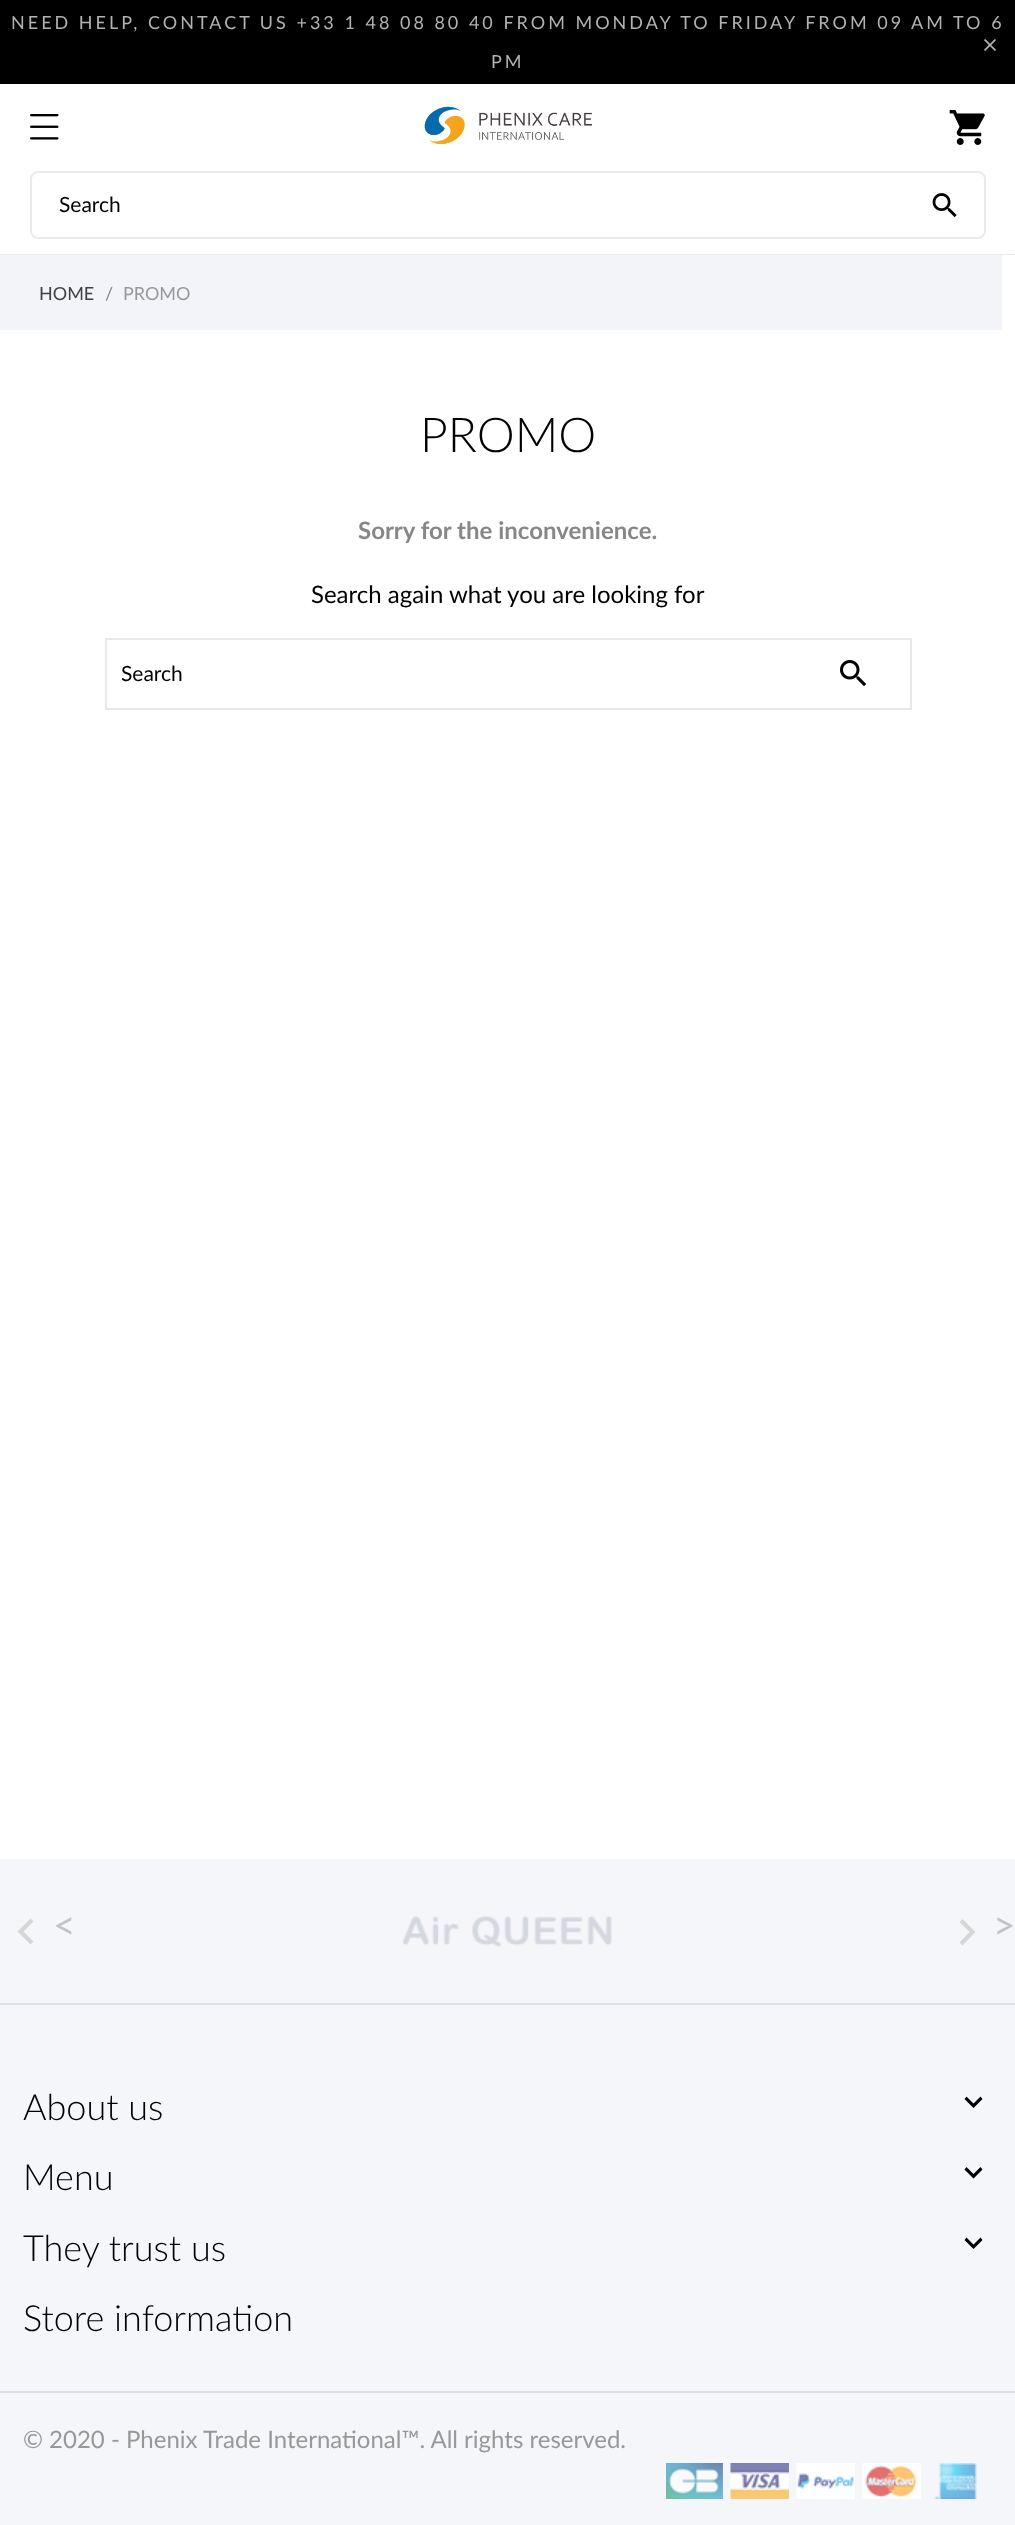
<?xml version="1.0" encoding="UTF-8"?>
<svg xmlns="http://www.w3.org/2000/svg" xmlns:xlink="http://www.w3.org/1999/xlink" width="1015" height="2525">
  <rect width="100%" height="100%" fill="#ffffff" />
  <rect y="254" width="1015" height="1" fill="#ebeaea" />
  <rect width="1015" height="84" fill="#000000" />
  <image x="984" y="39" width="12" height="12" xlink:href="image1.png" />
  <image x="30" y="114" width="29" height="26" xlink:href="image2.png" />
  <image x="424" y="106" width="168" height="38" xlink:href="image3.png" />
  <image x="949" y="110" width="36" height="35" xlink:href="image4.png" />
  <rect x="31" y="172" width="954" height="66" rx="7" fill="none" stroke="#ebeaea" stroke-width="2" />
  <image x="932" y="193" width="25" height="25" xlink:href="image5.png" />
  <rect y="255" width="1002" height="75" fill="#f2f4f9" />
  <rect x="106" y="639" width="805" height="70" fill="none" stroke="#e8e8e8" stroke-width="2" />
  <image x="840" y="660" width="27" height="27" xlink:href="image6.png" />
  <rect y="1859" width="1015" height="532" fill="#f5f6fa" />
  <rect y="2003" width="1015" height="2" fill="#dbdee7" />
  <path d="M 33.5 1941.5 l -3 3 l -13 -13 l 13 -13 l 3 3 l -10 10 z" fill="#d6d6d6" />
  <image x="402" y="1915" width="210" height="32" xlink:href="image7.png" />
  <path d="M 959.5 1942.5 l 10 -10.5 l -10 -10 l 3 -3 l 13 13 l -13 13.5 z" fill="#d6d6d6" />
  <rect y="2141" width="1015" height="2" fill="#f6f6f6" />
  <path d="M 966.5 2096.5 l 7 7 l 7 -7 l 2 2.5 l -9 9 l -9 -9 z" fill="#000000" />
  <rect y="2211" width="1015" height="2" fill="#f6f6f6" />
  <path d="M 966.5 2167 l 7 7 l 7 -7 l 2 2.5 l -9 9 l -9 -9 z" fill="#000000" />
  <rect y="2282" width="1015" height="2" fill="#f6f6f6" />
  <path d="M 966.5 2237.5 l 7 7 l 7 -7 l 2 2.5 l -9 9 l -9 -9 z" fill="#000000" />
  <rect y="2352" width="1015" height="2" fill="#f6f6f6" />
  <rect y="2393" width="1015" height="132" fill="#f5f6fa" />
  <rect y="2391" width="1015" height="2" fill="#dbdee7" />
  <image x="666" y="2463" width="57" height="36" xlink:href="image8.png" />
  <image x="730" y="2463" width="59" height="36" xlink:href="image9.png" />
  <image x="796" y="2463" width="59" height="36" xlink:href="image10.png" />
  <image x="862" y="2463" width="59" height="36" xlink:href="image11.png" />
  <image x="934" y="2463" width="43" height="36" xlink:href="image12.png" />
  <text x="11" y="29" style="font-family: Lato; font-size: 18px; letter-spacing: 3px; fill: #b2b2b2">NEED HELP, CONTACT US +33 1 48 08 80 40 FROM MONDAY TO FRIDAY FROM 09 AM TO 6</text>
  <text x="491" y="68" style="font-family: Lato; font-size: 18px; letter-spacing: 3px; fill: #b2b2b2">PM</text>
  <text x="59" y="212" style="font-family: Lato; font-size: 21px; fill: #000000">Search</text>
  <text x="39" y="300" style="font-family: Lato; font-size: 18px; fill: #414141">HOME</text>
  <text x="105" y="300" style="font-family: Lato; font-size: 18px; fill: #878787">/</text>
  <text x="123" y="300" style="font-family: Lato; font-size: 18px; fill: #989898">PROMO</text>
  <text x="420" y="452" style="font-family: Lato; font-size: 48px; font-weight: 300; fill: #000000">PROMO</text>
  <text x="358" y="539" style="font-family: Lato; font-size: 24px; font-weight: bold; fill: #878787">Sorry for the inconvenience.</text>
  <text x="311" y="603" style="font-family: Lato; font-size: 24px; fill: #000000">Search again what you are looking for</text>
  <text x="121" y="681" style="font-family: Lato; font-size: 21px; fill: #000000">Search</text>
  <text x="53" y="1939" style="font-family: Lato; font-size: 39px; fill: #c3c3c3">&lt;</text>
  <text x="993" y="1939" style="font-family: Lato; font-size: 39px; fill: #c3c3c3">&gt;</text>
  <text x="23" y="2120" style="font-family: Lato; font-size: 36px; font-weight: 300; fill: #000000">About us</text>
  <text x="23" y="2190" style="font-family: Lato; font-size: 36px; font-weight: 300; fill: #000000">Menu</text>
  <text x="23" y="2261" style="font-family: Lato; font-size: 36px; font-weight: 300; fill: #000000">They trust us</text>
  <text x="23" y="2331" style="font-family: Lato; font-size: 36px; font-weight: 300; fill: #000000">Store information</text>
  <text x="23" y="2448" style="font-family: Lato; font-size: 24px; fill: #989898">© 2020 - Phenix Trade International™. All rights reserved.</text>
</svg>
